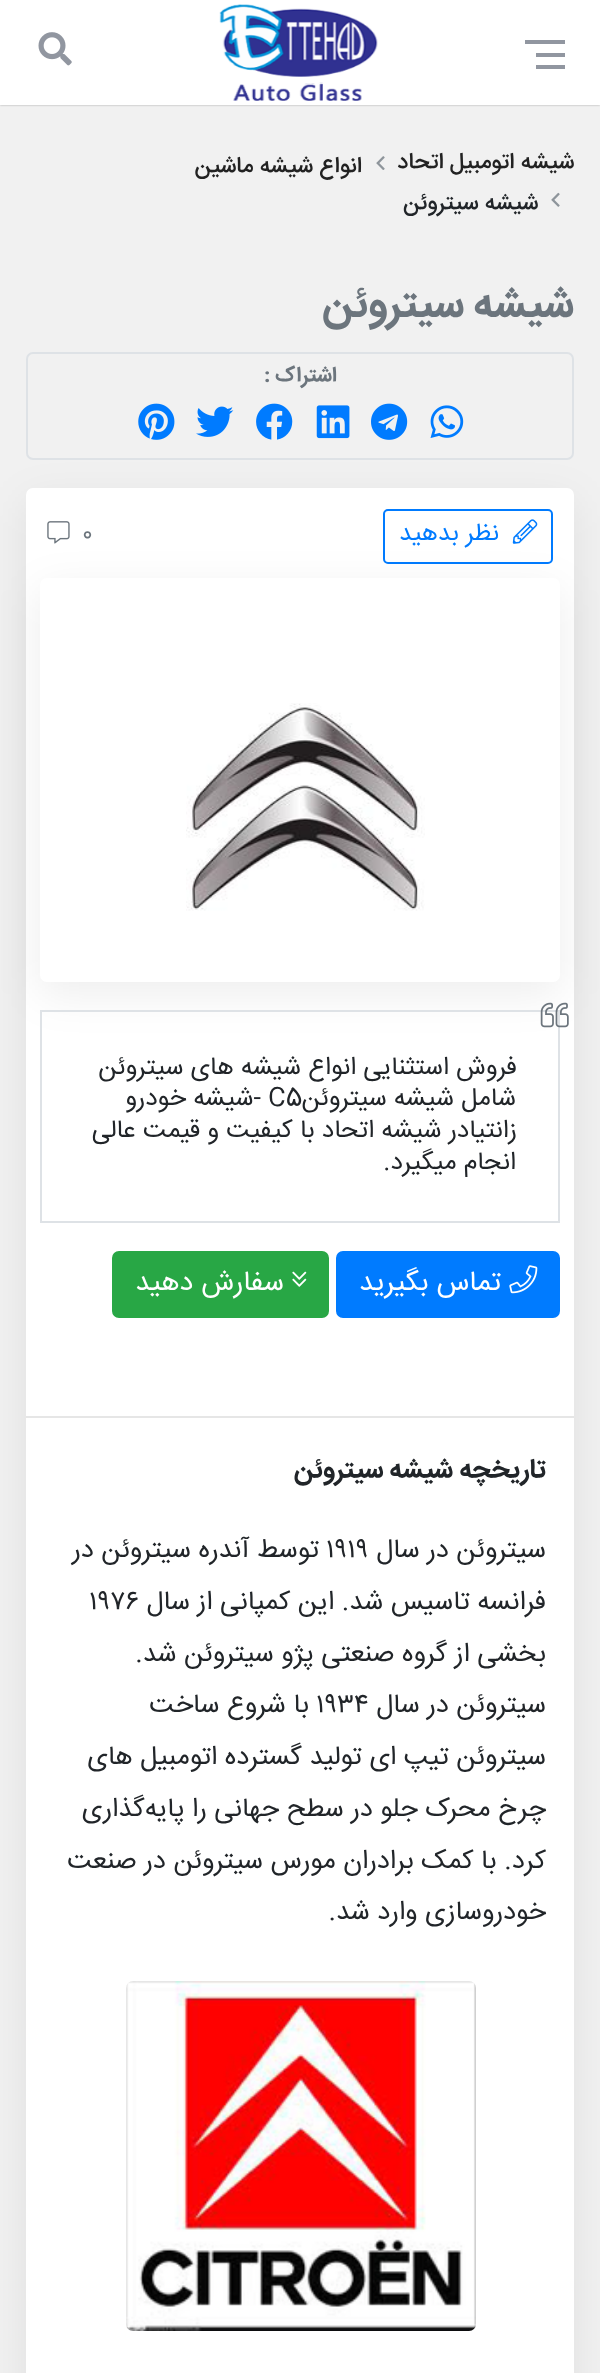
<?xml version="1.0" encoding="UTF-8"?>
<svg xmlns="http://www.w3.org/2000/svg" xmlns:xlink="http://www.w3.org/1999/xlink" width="600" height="2373">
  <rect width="100%" height="100%" fill="#f1f1f1" />
  <rect width="600" height="105" fill="#000000" fill-opacity="0.3" filter="blur(1px)" />
  <rect width="600" height="105" fill="#ffffff" />
  <rect x="536" y="53" width="29" height="4" fill="#9196a0" />
  <rect x="525" y="40" width="40" height="4" fill="#9196a0" />
  <rect x="536" y="65" width="29" height="4" fill="#9196a0" />
  <image x="219" y="4" width="159" height="97" xlink:href="image1.png" />
  <image x="38" y="32" width="34" height="34" xlink:href="image2.png" />
  <image x="376" y="156" width="9" height="14" xlink:href="image3.png" />
  <image x="551" y="192" width="9" height="15" xlink:href="image4.png" />
  <rect x="27" y="353" width="546" height="106" rx="6" fill="none" stroke="#dee2e6" stroke-width="2" />
  <image x="430" y="405" width="34" height="33" xlink:href="image5.png" />
  <image x="371" y="403" width="37" height="37" xlink:href="image6.png" />
  <image x="316" y="405" width="34" height="34" xlink:href="image7.png" />
  <image x="256" y="403" width="37" height="37" xlink:href="image8.png" />
  <image x="196" y="406" width="38" height="31" xlink:href="image9.png" />
  <image x="138" y="403" width="37" height="37" xlink:href="image10.png" />
  <rect x="26" y="501" width="548" height="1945" rx="7" fill="#000000" fill-opacity="0.07" filter="blur(22px)" />
  <rect x="26" y="488" width="548" height="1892" rx="7" fill="#ffffff" />
  <rect x="384" y="510" width="168" height="53" rx="4" fill="none" stroke="#007bff" stroke-width="2" />
  <image x="512" y="519" width="26" height="25" xlink:href="image12.png" />
  <image x="47" y="521" width="23" height="23" xlink:href="image13.png" />
  <rect x="40" y="590" width="520" height="404" rx="7" fill="#000000" fill-opacity="0.07" filter="blur(22px)" />
  <rect x="40" y="578" width="520" height="404" rx="7" fill="#ffffff" />
  <image x="186" y="703" width="239" height="208" xlink:href="image11.png" />
  <rect x="41" y="1011" width="518" height="211" fill="none" stroke="#dee2e6" stroke-width="2" />
  <image x="540" y="1002" width="29" height="26" xlink:href="image14.png" />
  <rect x="337" y="1252" width="222" height="65" rx="6" fill="#007bff" stroke="#007bff" stroke-width="2" />
  <image x="509" y="1265" width="29" height="29" xlink:href="image15.png" />
  <rect x="113" y="1252" width="215" height="65" rx="6" fill="#28a745" stroke="#28a745" stroke-width="2" />
  <image x="292" y="1271" width="15" height="16" xlink:href="image16.png" />
  <rect x="26" y="1416" width="548" height="2" fill="#e6e6e6" />
  <image x="126" y="1981" width="350" height="350" xlink:href="image17.png" />
  <text x="574" y="168" style="font-family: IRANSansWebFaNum; font-size: 22.5px; font-weight: 500; direction: rtl; fill: #222222">شیشه اتومبیل اتحاد</text>
  <text x="362" y="172" style="font-family: IRANSansWebFaNum; font-size: 22.5px; font-weight: 500; direction: rtl; fill: #222222">انواع شیشه ماشین</text>
  <text x="538" y="209" style="font-family: IRANSansWebFaNum; font-size: 22.5px; font-weight: 500; direction: rtl; fill: #212529">شیشه سیتروئن</text>
  <text x="574" y="316" style="font-family: IRANSansWebFaNum; font-size: 42px; font-weight: bold; direction: rtl; fill: #6c757d">شیشه سیتروئن</text>
  <text x="337" y="381" style="font-family: IRANSansWebFaNum; font-size: 21px; font-weight: bold; direction: rtl; fill: #6c757d">اشتراک :</text>
  <text x="499" y="540" style="font-family: IRANSansWebFaNum; font-size: 24.5px; direction: rtl; fill: #007bff">نظر بدهید</text>
  <text x="82" y="540" style="font-family: IRANSansWebFaNum; font-size: 22.5px; fill: #6c757d">0</text>
  <text x="517" y="1074" style="font-family: IRANSansWebFaNum; font-size: 25.25px; direction: rtl; fill: #212529">فروش استثنایی انواع شیشه های سیتروئن</text>
  <text x="516" y="1105" style="font-family: IRANSansWebFaNum; font-size: 25.25px; direction: rtl; fill: #212529">شامل شیشه سیتروئن</text>
  <text x="268" y="1105" style="font-family: IRANSansWebFaNum; font-size: 25.25px; fill: #212529">C5</text>
  <text x="261" y="1105" style="font-family: IRANSansWebFaNum; font-size: 25.25px; direction: rtl; fill: #212529">-شیشه خودرو</text>
  <text x="517" y="1137" style="font-family: IRANSansWebFaNum; font-size: 25.25px; direction: rtl; fill: #212529">زانتیادر شیشه اتحاد با کیفیت و قیمت عالی</text>
  <text x="516" y="1169" style="font-family: IRANSansWebFaNum; font-size: 25.25px; direction: rtl; fill: #212529">انجام میگیرد.</text>
  <text x="501" y="1290" style="font-family: IRANSansWebFaNum; font-size: 28px; direction: rtl; fill: #ffffff">تماس بگیرید</text>
  <text x="284" y="1290" style="font-family: IRANSansWebFaNum; font-size: 28px; direction: rtl; fill: #ffffff">سفارش دهید</text>
  <text x="546" y="1477" style="font-family: IRANSansWebFaNum; font-size: 26.6px; font-weight: bold; direction: rtl; fill: #212529">تاریخچه شیشه سیتروئن</text>
  <text x="546" y="1557" style="font-family: IRANSansWebFaNum; font-size: 26.6px; direction: rtl; fill: #212529">سیتروئن در سال</text>
  <text x="326" y="1557" style="font-family: IRANSansWebFaNum; font-size: 26.6px; fill: #212529">۱۹۱۹</text>
  <text x="319" y="1557" style="font-family: IRANSansWebFaNum; font-size: 26.6px; direction: rtl; fill: #212529">توسط آندره سیتروئن در</text>
  <text x="546" y="1609" style="font-family: IRANSansWebFaNum; font-size: 26.6px; direction: rtl; fill: #212529">فرانسه تاسیس شد. این کمپانی از سال</text>
  <text x="89" y="1609" style="font-family: IRANSansWebFaNum; font-size: 26.6px; fill: #212529">۱۹۷۶</text>
  <text x="546" y="1661" style="font-family: IRANSansWebFaNum; font-size: 26.6px; direction: rtl; fill: #212529">بخشی از گروه صنعتی پژو سیتروئن شد.</text>
  <text x="546" y="1712" style="font-family: IRANSansWebFaNum; font-size: 26.6px; direction: rtl; fill: #212529">سیتروئن در سال</text>
  <text x="316" y="1712" style="font-family: IRANSansWebFaNum; font-size: 26.6px; fill: #212529">۱۹۳۴</text>
  <text x="309" y="1712" style="font-family: IRANSansWebFaNum; font-size: 26.6px; direction: rtl; fill: #212529">با شروع ساخت</text>
  <text x="546" y="1764" style="font-family: IRANSansWebFaNum; font-size: 26.6px; direction: rtl; fill: #212529">سیتروئن تیپ ای تولید گسترده اتومبیل‌ های</text>
  <text x="546" y="1816" style="font-family: IRANSansWebFaNum; font-size: 26.6px; direction: rtl; fill: #212529">چرخ محرک جلو در سطح جهانی را پایه‌گذاری</text>
  <text x="546" y="1868" style="font-family: IRANSansWebFaNum; font-size: 26.6px; direction: rtl; fill: #212529">کرد. با کمک برادران مورس سیتروئن در صنعت</text>
  <text x="546" y="1919" style="font-family: IRANSansWebFaNum; font-size: 26.6px; direction: rtl; fill: #212529">خودروسازی وارد شد.</text>
</svg>
